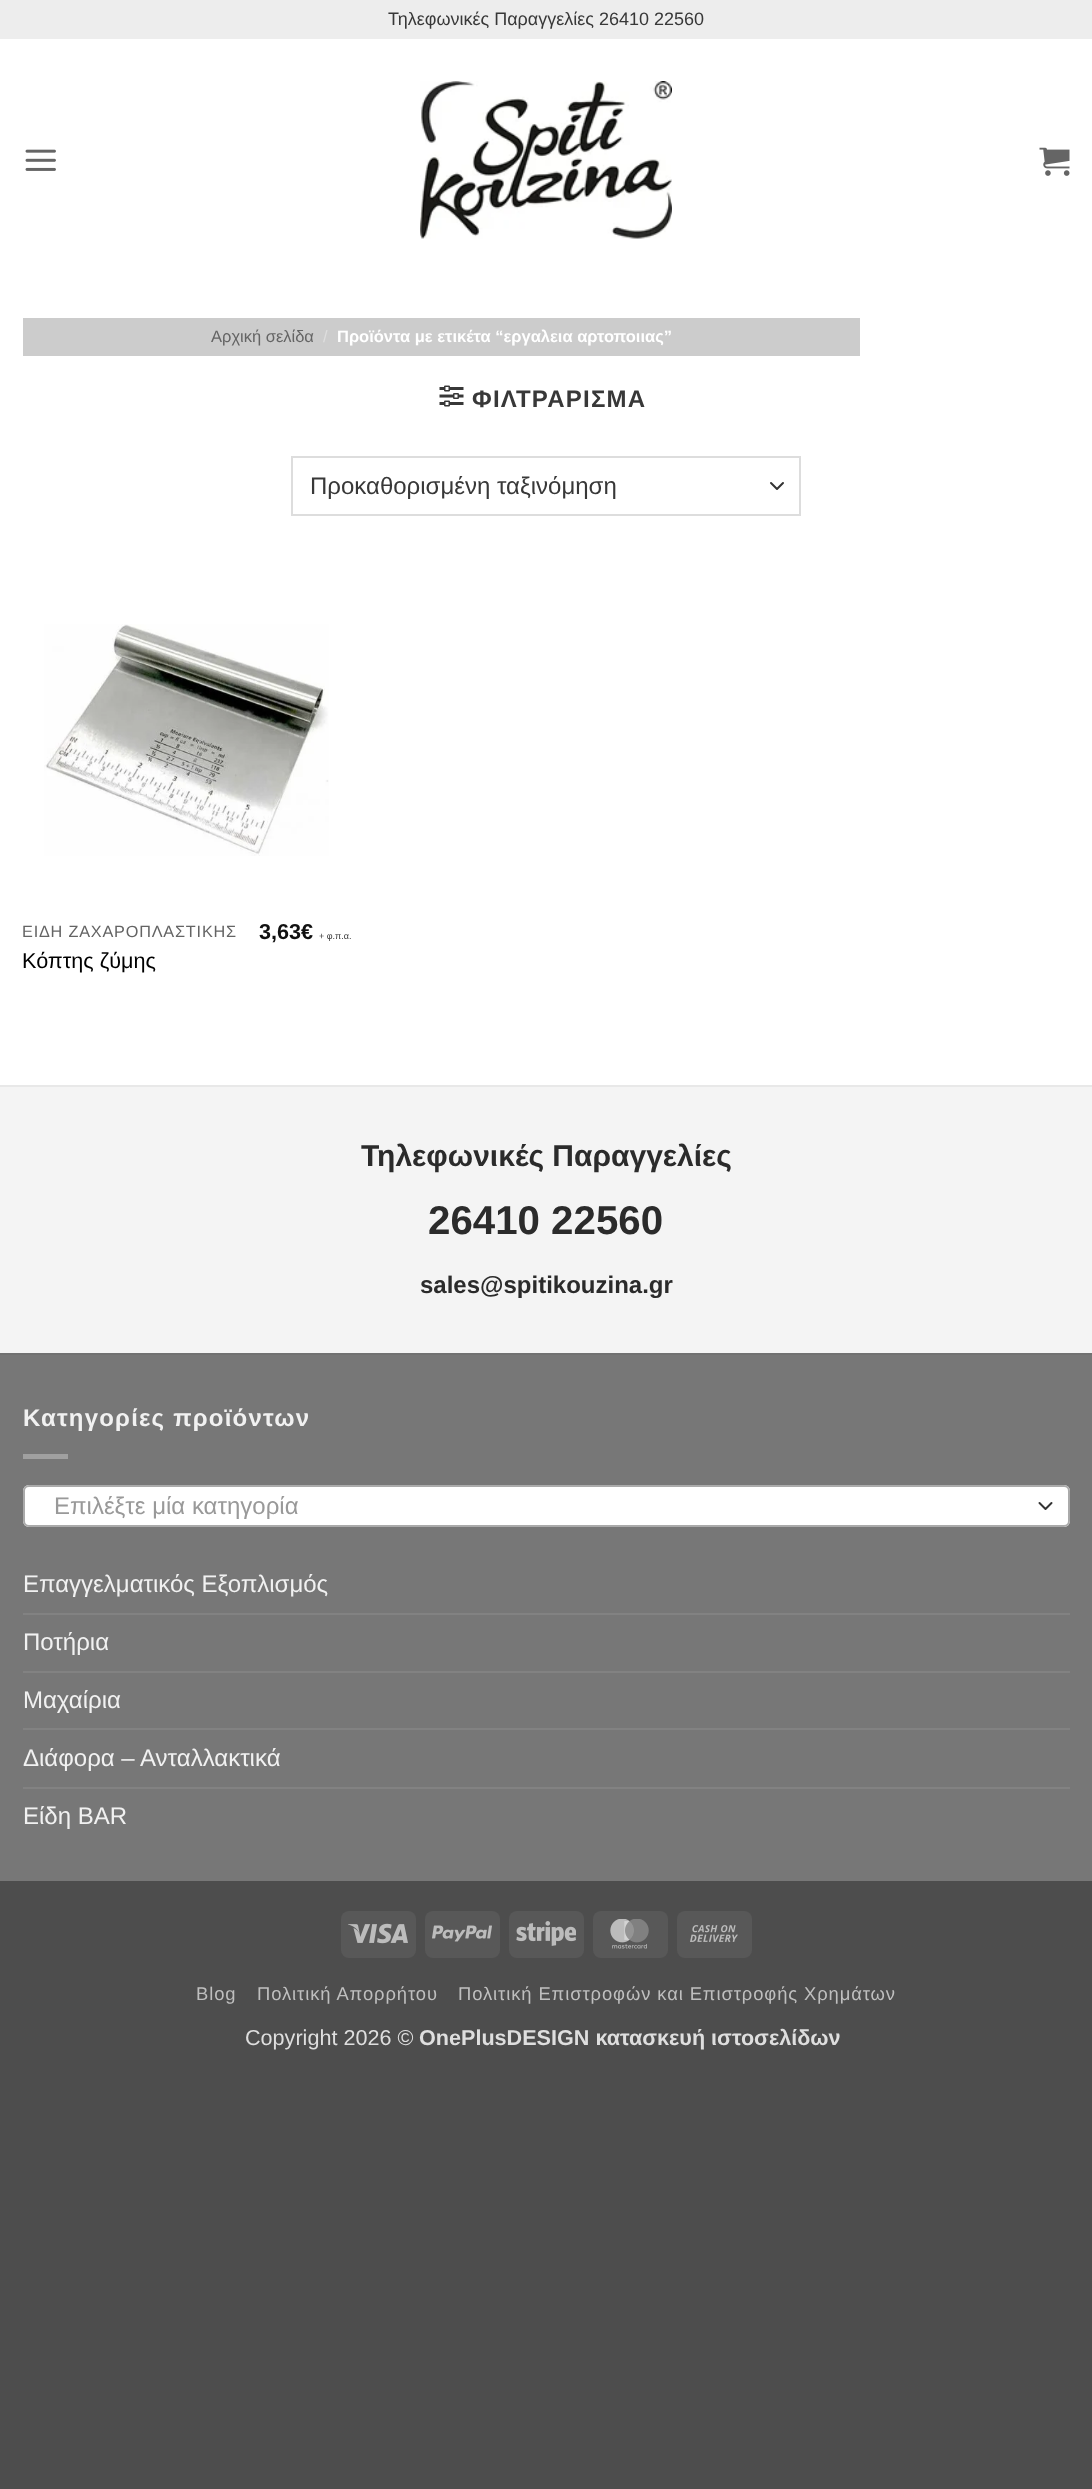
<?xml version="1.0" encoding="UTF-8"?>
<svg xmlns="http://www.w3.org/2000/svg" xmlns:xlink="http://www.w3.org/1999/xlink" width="1092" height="2489">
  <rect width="100%" height="100%" fill="#4d4d4d" />
  <rect y="39" width="1092" height="1046" fill="#ffffff" />
  <rect width="1092" height="39" fill="#ededed" />
  <image x="25" y="149" width="31" height="22" xlink:href="image1.png" />
  <image x="420" y="81" width="252" height="158" xlink:href="image2.png" />
  <image x="1039" y="147" width="31" height="29" xlink:href="image3.png" />
  <rect x="23" y="318" width="837" height="38" fill="#cccccc" />
  <image x="439" y="385" width="25" height="22" xlink:href="image4.png" />
  <path d="M 771 483 l 6 6 l 6 -6" fill="none" stroke="#333333" stroke-width="2" stroke-linecap="round" stroke-linejoin="round" />
  <rect x="292" y="457" width="508" height="58" fill="none" stroke="#dddddd" stroke-width="2" />
  <image x="44" y="624" width="285" height="232" xlink:href="image5.png" />
  <rect y="1087" width="1092" height="266" fill="#f4f4f4" />
  <rect y="1085" width="1092" height="2" fill="#e8e8e8" />
  <rect y="1355" width="1092" height="526" fill="#777777" />
  <rect y="1353" width="1092" height="2" fill="#717171" />
  <rect x="23" y="1454" width="45" height="5" fill="#a0a0a0" />
  <rect x="23" y="1485" width="1047" height="42" rx="6" fill="#ffffff" />
  <path d="M 1039.5 1503 l 6 6 l 6 -6" fill="none" stroke="#333333" stroke-width="2" stroke-linecap="round" stroke-linejoin="round" />
  <rect x="24" y="1486" width="1045" height="40" rx="5" fill="none" stroke="#aaaaaa" stroke-width="2" />
  <rect x="23" y="1613" width="1047" height="2" fill="#828282" />
  <rect x="23" y="1671" width="1047" height="2" fill="#828282" />
  <rect x="23" y="1728" width="1047" height="2" fill="#828282" />
  <rect x="23" y="1787" width="1047" height="2" fill="#828282" />
  <rect x="341" y="1911" width="75" height="47" rx="8" fill="#585858" />
  <image x="348" y="1923" width="60" height="21" xlink:href="image6.png" />
  <rect x="425" y="1911" width="75" height="47" rx="8" fill="#585858" />
  <image x="432" y="1925" width="60" height="17" xlink:href="image7.png" />
  <rect x="509" y="1911" width="75" height="47" rx="8" fill="#585858" />
  <image x="516" y="1921" width="60" height="25" xlink:href="image8.png" />
  <rect x="593" y="1911" width="75" height="47" rx="8" fill="#585858" />
  <image x="610" y="1919" width="39" height="30" xlink:href="image9.png" />
  <rect x="677" y="1911" width="75" height="47" rx="8" fill="#585858" />
  <image x="690" y="1925" width="48" height="17" xlink:href="image10.png" />
  <text x="388" y="25" style="font-family: Liberation Sans; font-size: 18px; fill: #383838">Τηλεφωνικές Παραγγελίες 26410 22560</text>
  <text x="211" y="342" style="font-family: Liberation Sans; font-size: 16.5px; fill: #646464">Αρχική σελίδα</text>
  <text x="323" y="342" style="font-family: Liberation Sans; font-size: 16.5px; fill: #dedede">/</text>
  <text x="337" y="342" style="font-family: Liberation Sans; font-size: 16.5px; font-weight: bold; fill: #ffffff">Προϊόντα με ετικέτα “εργαλεια αρτοποιιας”</text>
  <text x="472" y="407" style="font-family: Liberation Sans; font-size: 24px; font-weight: bold; letter-spacing: 1.2px; fill: #383838">ΦΙΛΤΡΑΡΙΣΜΑ</text>
  <text x="310" y="494" style="font-family: Liberation Sans; font-size: 24px; fill: #383838">Προκαθορισμένη ταξινόμηση</text>
  <text x="22" y="937" style="font-family: Liberation Sans; font-size: 16.25px; letter-spacing: 0.8px; fill: #646464">ΕΙΔΗ ΖΑΧΑΡΟΠΛΑΣΤΙΚΗΣ</text>
  <text x="22" y="968" style="font-family: Liberation Sans; font-size: 21.6px; fill: #000000">Κόπτης ζύμης</text>
  <text x="259" y="939" style="font-family: Liberation Sans; font-size: 21.6px; font-weight: bold; fill: #111111">3,63€</text>
  <text x="319" y="939" style="font-family: Liberation Sans; font-size: 9px; fill: #383838">+ φ.π.α.</text>
  <text x="361" y="1166" style="font-family: Liberation Sans; font-size: 30px; font-weight: bold; fill: #2b2b2b">Τηλεφωνικές Παραγγελίες</text>
  <text x="428" y="1234" style="font-family: Liberation Sans; font-size: 40.25px; font-weight: bold; fill: #2b2b2b">26410 22560</text>
  <text x="420" y="1293" style="font-family: Liberation Sans; font-size: 24px; font-weight: bold; fill: #2b2b2b">sales@spitikouzina.gr</text>
  <text x="23" y="1426" style="font-family: Liberation Sans; font-size: 24px; font-weight: bold; letter-spacing: 1.2px; fill: #f1f1f1">Κατηγορίες προϊόντων</text>
  <text x="54" y="1514" style="font-family: Liberation Sans; font-size: 24px; fill: #999999">Επιλέξτε μία κατηγορία</text>
  <text x="23" y="1592" style="font-family: Liberation Sans; font-size: 24px; fill: #f1f1f1">Επαγγελματικός Εξοπλισμός</text>
  <text x="23" y="1650" style="font-family: Liberation Sans; font-size: 24px; fill: #f1f1f1">Ποτήρια</text>
  <text x="23" y="1708" style="font-family: Liberation Sans; font-size: 24px; fill: #f1f1f1">Μαχαίρια</text>
  <text x="23" y="1766" style="font-family: Liberation Sans; font-size: 24px; fill: #f1f1f1">Διάφορα – Ανταλλακτικά</text>
  <text x="23" y="1824" style="font-family: Liberation Sans; font-size: 24px; fill: #f1f1f1">Είδη ΒAR</text>
  <text x="196" y="2000" style="font-family: Liberation Sans; font-size: 18.4px; letter-spacing: 0.9px; fill: #bfbfbf">Blog</text>
  <text x="257" y="2000" style="font-family: Liberation Sans; font-size: 18.4px; letter-spacing: 0.9px; fill: #bfbfbf">Πολιτική Απορρήτου</text>
  <text x="458" y="2000" style="font-family: Liberation Sans; font-size: 18.4px; letter-spacing: 0.9px; fill: #bfbfbf">Πολιτική Επιστροφών και Επιστροφής Χρημάτων</text>
  <text x="245" y="2045" style="font-family: Liberation Sans; font-size: 21.6px; fill: #dedede">Copyright 2026 ©</text>
  <text x="419" y="2045" style="font-family: Liberation Sans; font-size: 21.6px; font-weight: bold; fill: #dedede">OnePlusDESIGN κατασκευή ιστοσελίδων</text>
</svg>
